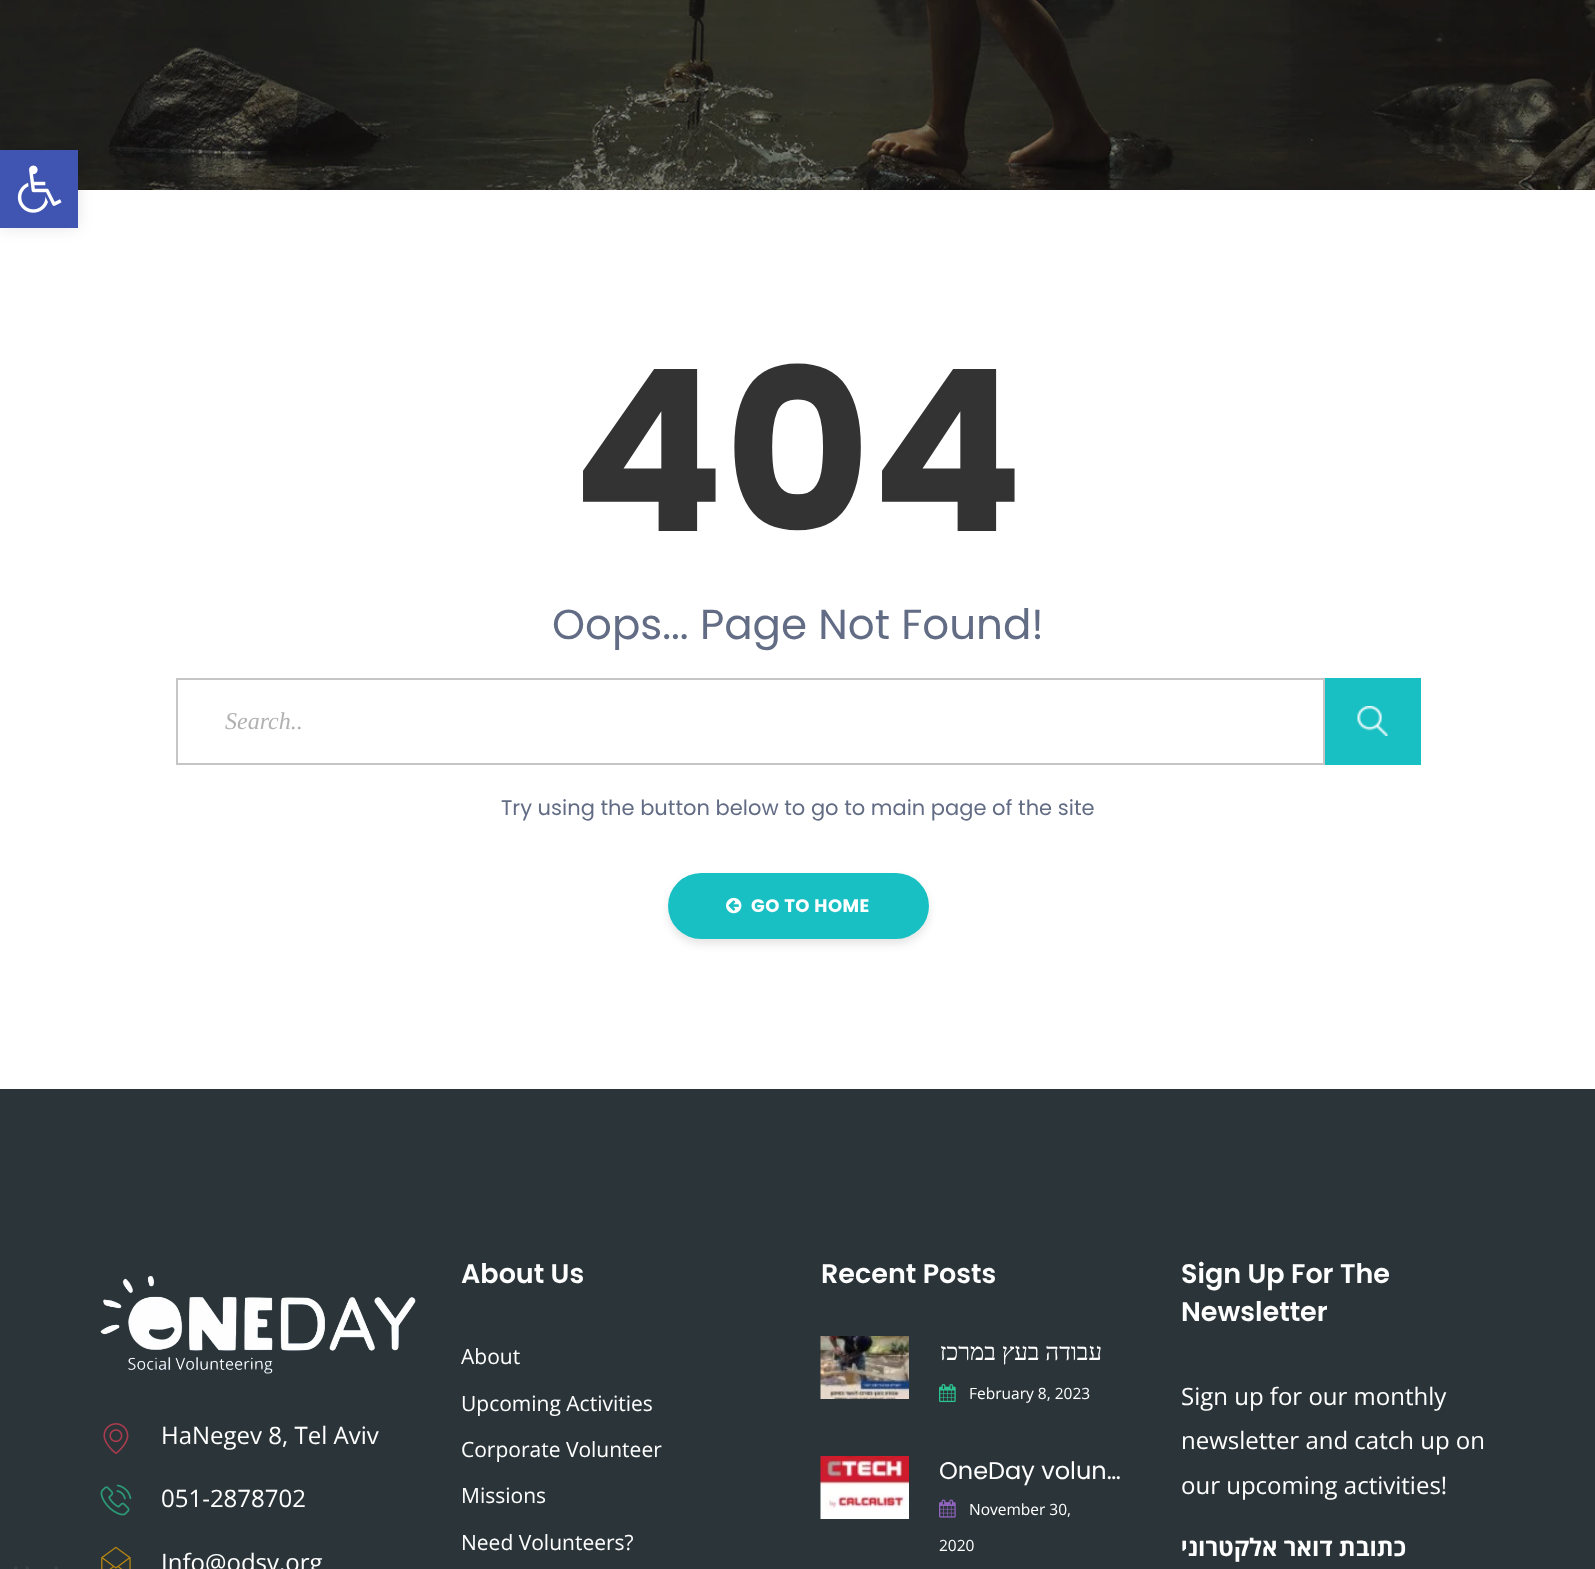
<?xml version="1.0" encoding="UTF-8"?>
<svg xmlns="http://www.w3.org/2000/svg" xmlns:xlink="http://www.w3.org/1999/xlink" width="1595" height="1569">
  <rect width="100%" height="100%" fill="#ffffff" />
  <image x="0" y="0" width="1595" height="190" xlink:href="image2.png" />
  <rect y="150" width="78" height="78" fill="#000000" fill-opacity="0.1" filter="blur(7.5px)" />
  <rect y="150" width="78" height="78" fill="#4054b2" />
  <image x="17" y="165" width="45" height="48" xlink:href="image1.png" />
  <rect x="177" y="679" width="1147" height="85" fill="none" stroke="#c5c5c5" stroke-width="2" />
  <rect x="1325" y="678" width="96" height="87" fill="#18bfc3" />
  <image x="1357" y="706" width="31" height="30" xlink:href="image3.png" />
  <rect x="668" y="878" width="261" height="66" rx="33" fill="#000000" fill-opacity="0.1" filter="blur(4px)" />
  <rect x="668" y="873" width="261" height="66" rx="33" fill="#18bfc3" />
  <image x="726" y="897" width="16" height="17" xlink:href="image4.png" />
  <rect y="1089" width="1595" height="480" fill="#2b3539" />
  <image x="14" y="1566" width="44" height="3" xlink:href="image5.png" />
  <image x="100" y="1276" width="316" height="98" xlink:href="image6.png" />
  <image x="103" y="1423" width="26" height="31" xlink:href="image7.png" />
  <image x="100" y="1484" width="32" height="32" xlink:href="image8.png" />
  <image x="101" y="1546" width="30" height="23" xlink:href="image9.png" />
  <image x="820" y="1336" width="89" height="63" xlink:href="image10.png" />
  <image x="939" y="1384" width="17" height="19" xlink:href="image11.png" />
  <image x="820" y="1456" width="89" height="63" xlink:href="image12.png" />
  <image x="939" y="1499" width="17" height="19" xlink:href="image13.png" />
  <text x="572" y="531" style="font-family: Poppins; font-size: 225px; font-weight: bold; fill: #333333">404</text>
  <text x="552" y="639" style="font-family: Poppins; font-size: 42px; fill: #626c84">Oops... Page Not Found!</text>
  <text x="225" y="729" style="font-family: Liberation Serif; font-size: 24px; font-style: italic; fill: #b1b1b1">Search..</text>
  <text x="501" y="815" style="font-family: Poppins; font-size: 21px; fill: #626c84">Try using the button below to go to main page of the site</text>
  <text x="751" y="912" style="font-family: Poppins; font-size: 18px; font-weight: bold; letter-spacing: 0.5px; fill: #ffffff">GO TO HOME</text>
  <text x="161" y="1444" style="font-family: Open Sans; font-size: 24px; fill: #ffffff">HaNegev 8, Tel Aviv</text>
  <text x="161" y="1507" style="font-family: Open Sans; font-size: 24px; fill: #ffffff">051-2878702</text>
  <text x="161" y="1571" style="font-family: Open Sans; font-size: 24px; fill: #ffffff">Info@odsv.org</text>
  <text x="461" y="1283" style="font-family: Poppins; font-size: 27px; font-weight: 600; fill: #ffffff">About Us</text>
  <text x="461" y="1364" style="font-family: Open Sans; font-size: 21px; fill: #ffffff">About</text>
  <text x="461" y="1411" style="font-family: Open Sans; font-size: 21px; fill: #ffffff">Upcoming Activities</text>
  <text x="461" y="1457" style="font-family: Open Sans; font-size: 21px; fill: #ffffff">Corporate Volunteer</text>
  <text x="461" y="1503" style="font-family: Open Sans; font-size: 21px; fill: #ffffff">Missions</text>
  <text x="461" y="1550" style="font-family: Open Sans; font-size: 21px; fill: #ffffff">Need Volunteers?</text>
  <text x="821" y="1283" style="font-family: Poppins; font-size: 27px; font-weight: 600; fill: #ffffff">Recent Posts</text>
  <text x="1102" y="1360" style="font-family: Liberation Serif; font-size: 24px; direction: rtl; fill: #ffffff">עבודה בעץ במרכז</text>
  <text x="969" y="1399" style="font-family: Open Sans; font-size: 15.5px; fill: #ffffff">February 8, 2023</text>
  <text x="939" y="1479" style="font-family: Poppins; font-size: 24px; fill: #ffffff">OneDay volun…</text>
  <text x="969" y="1515" style="font-family: Open Sans; font-size: 15.5px; fill: #ffffff">November 30,</text>
  <text x="939" y="1551" style="font-family: Open Sans; font-size: 15.5px; fill: #ffffff">2020</text>
  <text x="1181" y="1283" style="font-family: Poppins; font-size: 27px; font-weight: 600; fill: #ffffff">Sign Up For The</text>
  <text x="1181" y="1321" style="font-family: Poppins; font-size: 27px; font-weight: 600; fill: #ffffff">Newsletter</text>
  <text x="1181" y="1405" style="font-family: Open Sans; font-size: 24px; fill: #ffffff">Sign up for our monthly</text>
  <text x="1181" y="1449" style="font-family: Open Sans; font-size: 24px; fill: #ffffff">newsletter and catch up on</text>
  <text x="1181" y="1494" style="font-family: Open Sans; font-size: 24px; fill: #ffffff">our upcoming activities!</text>
  <text x="1406" y="1556" style="font-family: Open Sans; font-size: 24px; font-weight: bold; direction: rtl; fill: #ffffff">כתובת דואר אלקטרוני</text>
</svg>
